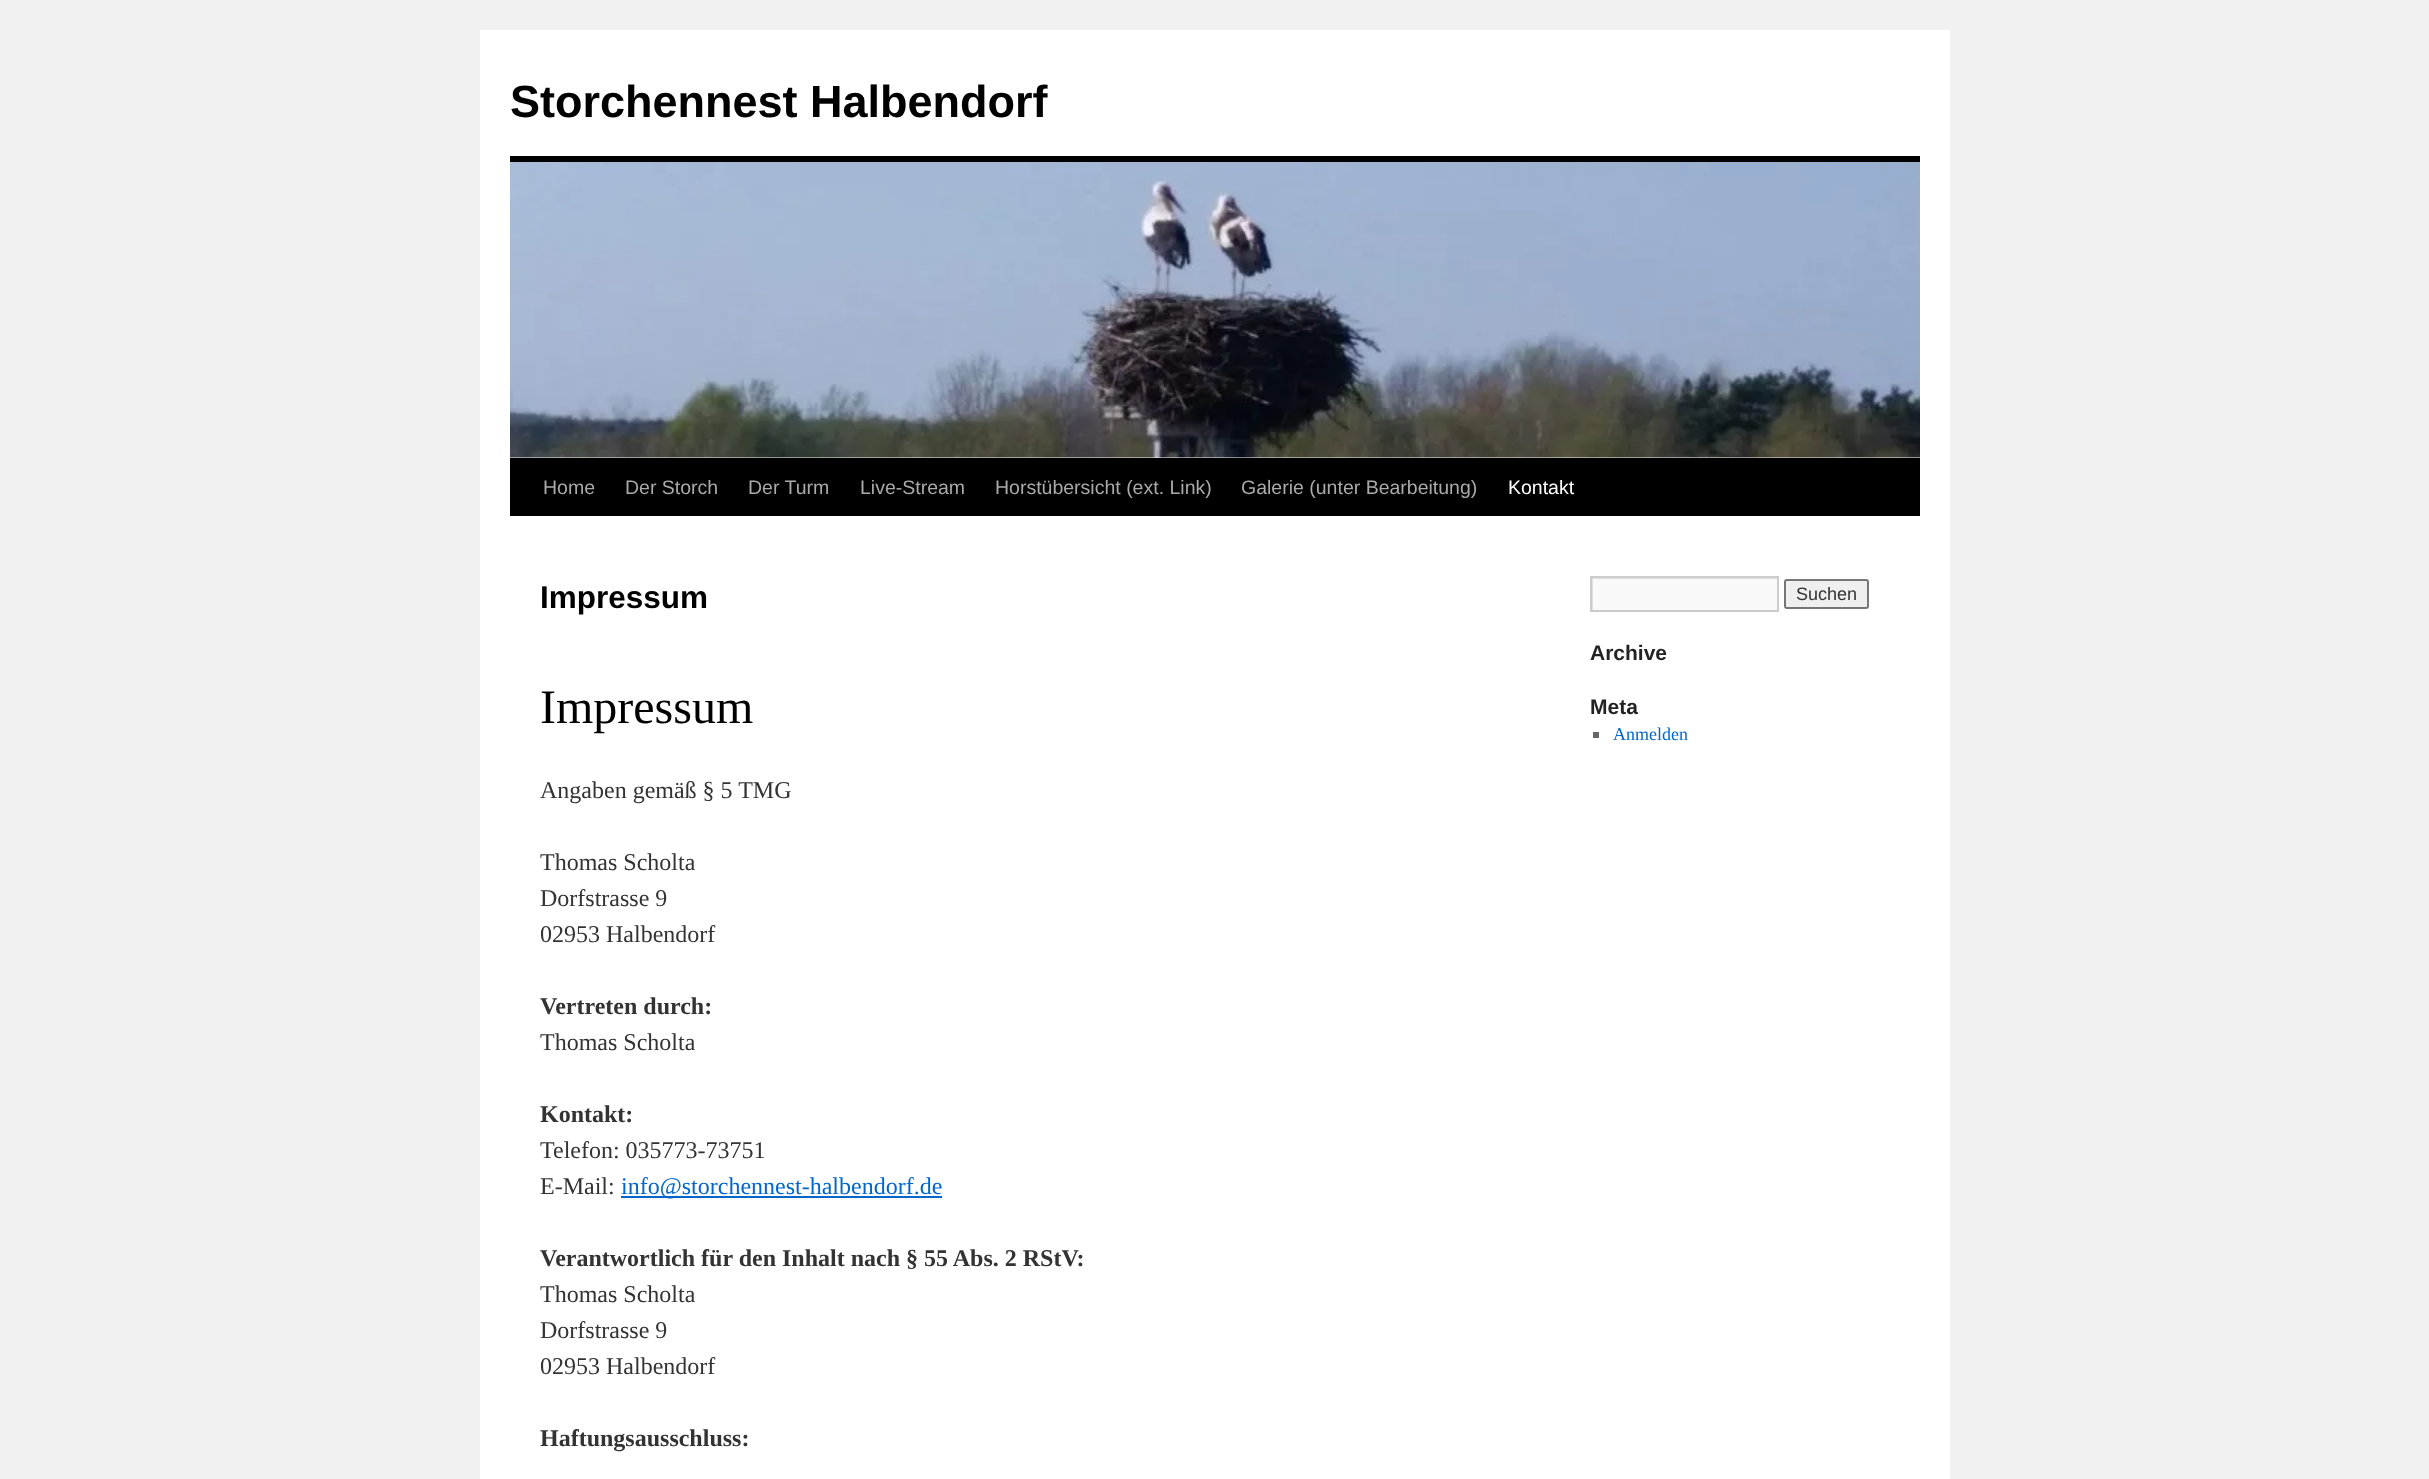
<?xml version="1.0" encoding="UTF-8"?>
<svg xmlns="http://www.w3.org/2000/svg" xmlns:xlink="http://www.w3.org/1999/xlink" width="2429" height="1479">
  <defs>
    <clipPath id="clip1"><rect x="1592" y="578" width="186" height="33" /></clipPath>
  </defs>
  <rect width="100%" height="100%" fill="#f1f1f1" />
  <rect x="480" y="30" width="1470" height="1449" fill="#ffffff" />
  <rect x="510" y="156" width="1410" height="6" fill="#000000" />
  <rect x="510" y="458" width="1410" height="58" fill="#000000" />
  <image x="510" y="162" width="1410" height="296" xlink:href="image1.png" />
  <rect x="621" y="1196" width="321" height="2" fill="#0066cc" />
  <rect x="1593" y="579" width="184" height="31" fill="#f9f9f9" />
  <g clip-path="url(#clip1)">
    <path d="M 1443 429 h 483 v 330 h -483 z m 150 150 h 186 v 33 h -186 z" fill="#e0e0e0" fill-rule="evenodd" />
  </g>
  <rect x="1591" y="577" width="187" height="34" fill="none" stroke="#cccccc" stroke-width="2" />
  <rect x="1785" y="580" width="83" height="28" rx="2" fill="#efefef" stroke="#767676" stroke-width="2" />
  <rect x="1593" y="732" width="6" height="6" fill="#666666" />
  <text x="510" y="117" style="font-family: Liberation Sans; font-size: 45px; font-weight: bold; fill: #000000">Storchennest Halbendorf</text>
  <text x="543" y="494" style="font-family: Liberation Sans; font-size: 19.5px; fill: #aaaaaa">Home</text>
  <text x="625" y="494" style="font-family: Liberation Sans; font-size: 19.5px; fill: #aaaaaa">Der Storch</text>
  <text x="748" y="494" style="font-family: Liberation Sans; font-size: 19.5px; fill: #aaaaaa">Der Turm</text>
  <text x="860" y="494" style="font-family: Liberation Sans; font-size: 19.5px; fill: #aaaaaa">Live-Stream</text>
  <text x="995" y="494" style="font-family: Liberation Sans; font-size: 19.5px; fill: #aaaaaa">Horstübersicht (ext. Link)</text>
  <text x="1241" y="494" style="font-family: Liberation Sans; font-size: 19.5px; fill: #aaaaaa">Galerie (unter Bearbeitung)</text>
  <text x="1508" y="494" style="font-family: Liberation Sans; font-size: 19.5px; fill: #ffffff">Kontakt</text>
  <text x="540" y="608" style="font-family: Liberation Sans; font-size: 31.5px; font-weight: bold; fill: #000000">Impressum</text>
  <text x="540" y="723" style="font-family: Liberation Serif; font-size: 48px; fill: #000000">Impressum</text>
  <text x="540" y="798" style="font-family: Liberation Serif; font-size: 24px; fill: #333333">Angaben gemäß § 5 TMG</text>
  <text x="540" y="870" style="font-family: Liberation Serif; font-size: 24px; fill: #333333">Thomas Scholta</text>
  <text x="540" y="906" style="font-family: Liberation Serif; font-size: 24px; fill: #333333">Dorfstrasse 9</text>
  <text x="540" y="942" style="font-family: Liberation Serif; font-size: 24px; fill: #333333">02953 Halbendorf</text>
  <text x="540" y="1014" style="font-family: Liberation Serif; font-size: 24px; font-weight: bold; fill: #333333">Vertreten durch:</text>
  <text x="540" y="1050" style="font-family: Liberation Serif; font-size: 24px; fill: #333333">Thomas Scholta</text>
  <text x="540" y="1122" style="font-family: Liberation Serif; font-size: 24px; font-weight: bold; fill: #333333">Kontakt:</text>
  <text x="540" y="1158" style="font-family: Liberation Serif; font-size: 24px; fill: #333333">Telefon: 035773-73751</text>
  <text x="540" y="1194" style="font-family: Liberation Serif; font-size: 24px; fill: #333333">E-Mail:</text>
  <text x="621" y="1194" style="font-family: Liberation Serif; font-size: 24px; fill: #0066cc">info@storchennest-halbendorf.de</text>
  <text x="540" y="1266" style="font-family: Liberation Serif; font-size: 24px; font-weight: bold; fill: #333333">Verantwortlich für den Inhalt nach § 55 Abs. 2 RStV:</text>
  <text x="540" y="1302" style="font-family: Liberation Serif; font-size: 24px; fill: #333333">Thomas Scholta</text>
  <text x="540" y="1338" style="font-family: Liberation Serif; font-size: 24px; fill: #333333">Dorfstrasse 9</text>
  <text x="540" y="1374" style="font-family: Liberation Serif; font-size: 24px; fill: #333333">02953 Halbendorf</text>
  <text x="540" y="1446" style="font-family: Liberation Serif; font-size: 24px; font-weight: bold; fill: #333333">Haftungsausschluss:</text>
  <text x="1796" y="600" style="font-family: Liberation Sans; font-size: 18px; fill: #333333">Suchen</text>
  <text x="1590" y="660" style="font-family: Liberation Sans; font-size: 21px; font-weight: bold; fill: #222222">Archive</text>
  <text x="1590" y="714" style="font-family: Liberation Sans; font-size: 21px; font-weight: bold; fill: #222222">Meta</text>
  <text x="1613" y="740" style="font-family: Liberation Serif; font-size: 18px; fill: #0066cc">Anmelden</text>
</svg>
